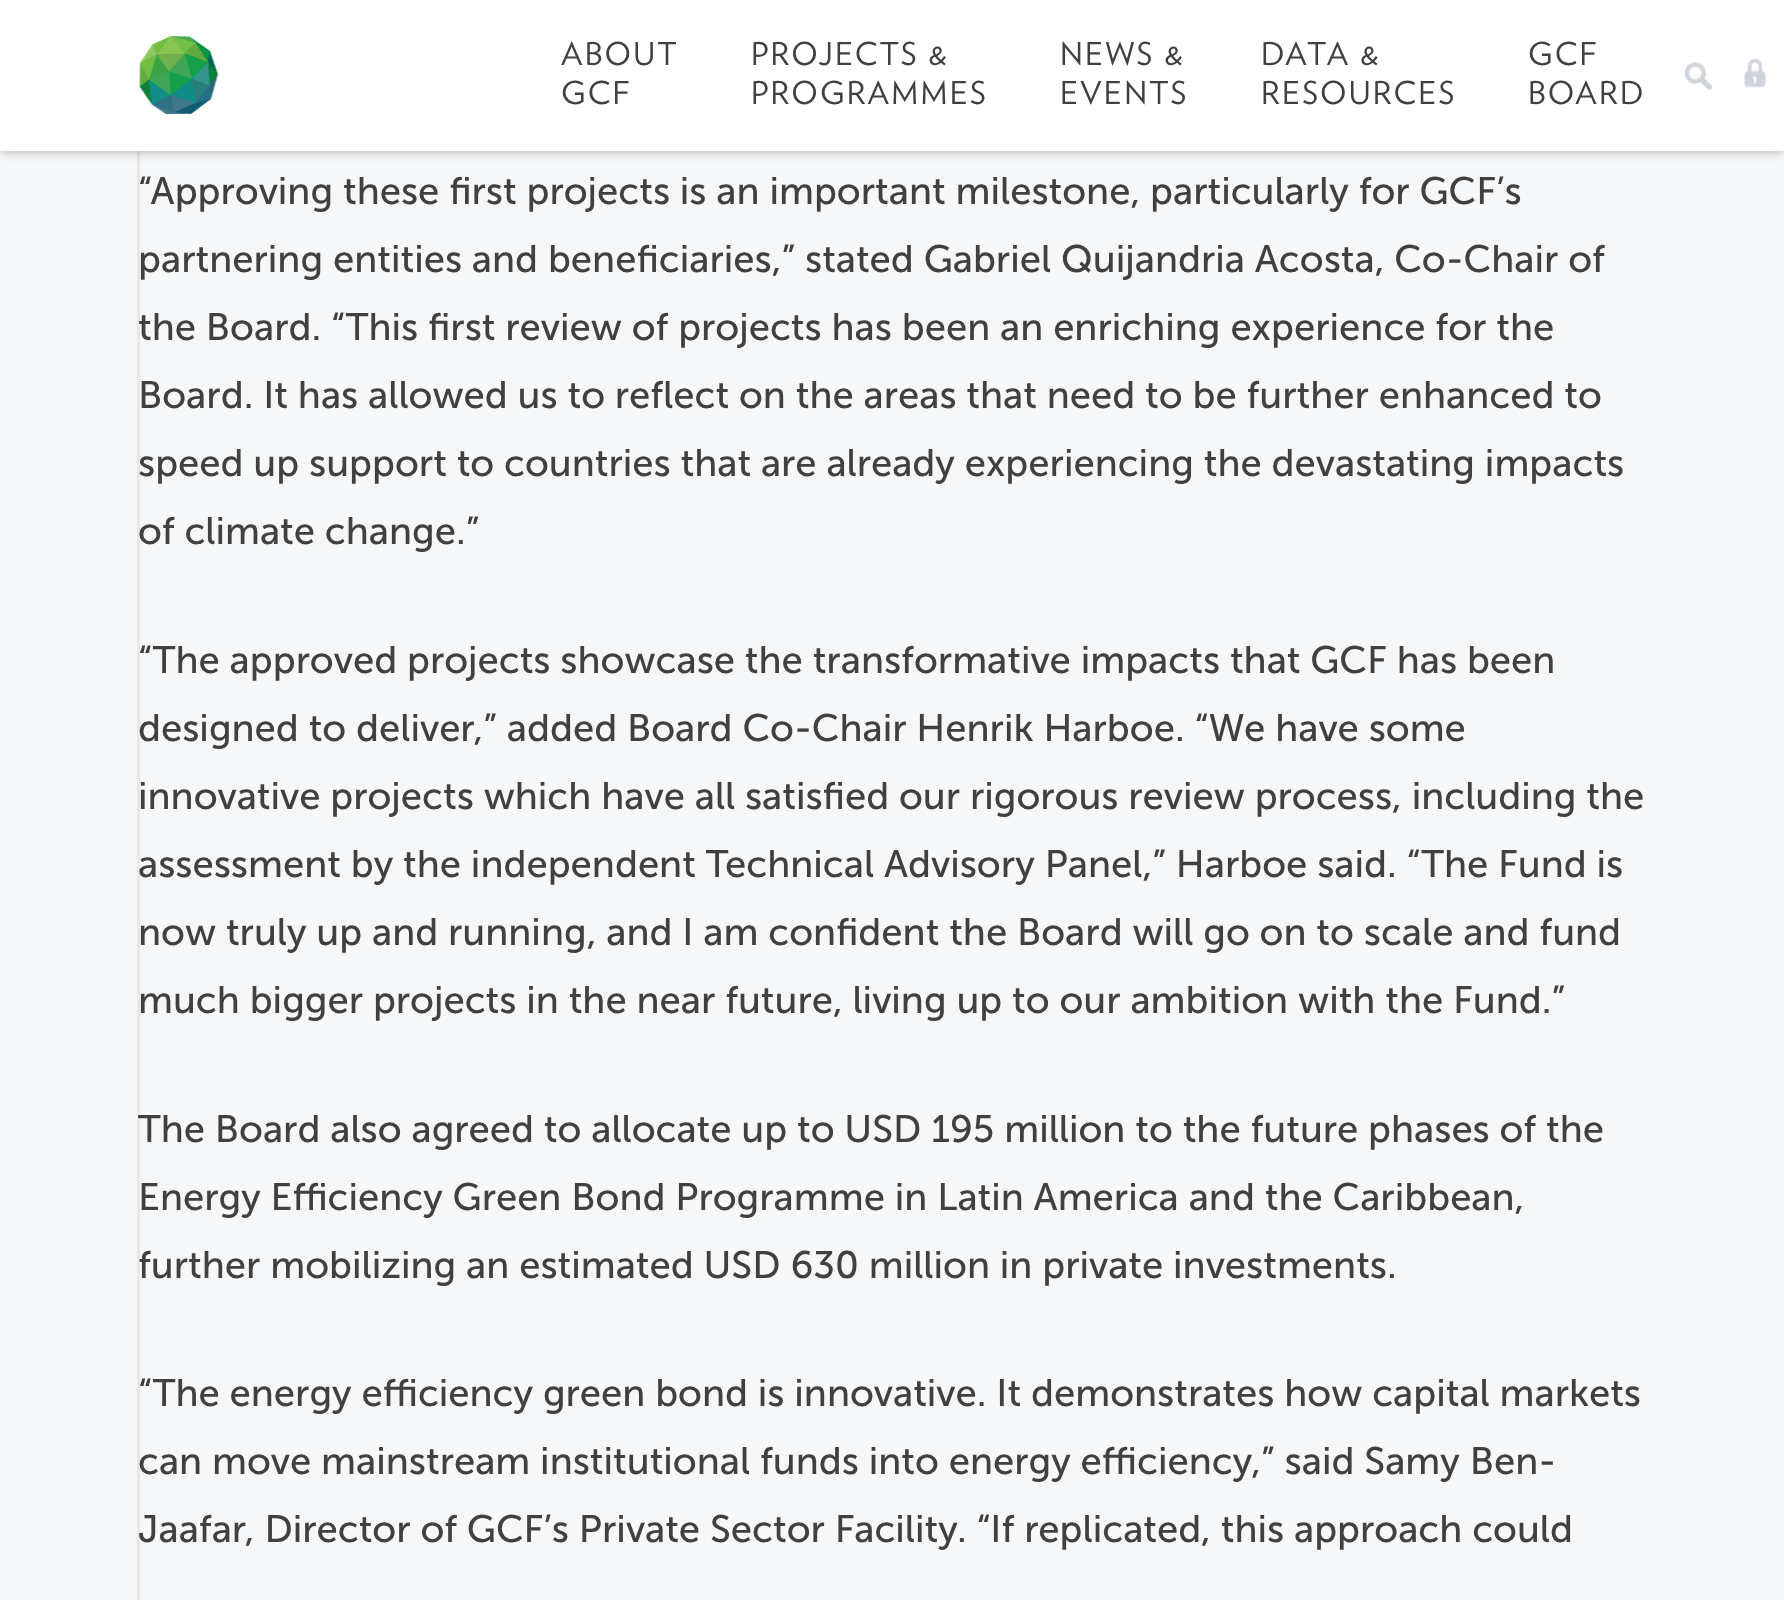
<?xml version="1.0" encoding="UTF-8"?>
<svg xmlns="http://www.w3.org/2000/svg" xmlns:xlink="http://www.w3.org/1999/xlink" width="1784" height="1600">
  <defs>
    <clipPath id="clip1"><path d="M 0 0 h 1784 v 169 h -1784 z m 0 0 h 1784 v 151 h -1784 z" clip-rule="evenodd" /></clipPath>
  </defs>
  <rect width="100%" height="100%" fill="#f6f7f8" />
  <rect x="137" width="3" height="1600" fill="#e8e8e8" />
  <g clip-path="url(#clip1)">
    <rect width="1784" height="151" fill="#000000" fill-opacity="0.32" filter="blur(5.5px)" />
  </g>
  <rect width="1784" height="151" fill="#ffffff" fill-opacity="0.98" />
  <image x="139" y="36" width="80" height="79" xlink:href="image1.png" />
  <image x="1684" y="62" width="28" height="28" xlink:href="image2.png" />
  <image x="1744" y="58" width="22" height="30" xlink:href="image3.png" />
  <text x="561" y="65" style="font-family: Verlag; font-size: 31.5px; letter-spacing: 2.25px; fill: #404040">ABOUT</text>
  <text x="561" y="104" style="font-family: Verlag; font-size: 31.5px; letter-spacing: 2.25px; fill: #404040">GCF</text>
  <text x="751" y="65" style="font-family: Verlag; font-size: 31.5px; letter-spacing: 2.25px; fill: #404040">PROJECTS &amp;</text>
  <text x="751" y="104" style="font-family: Verlag; font-size: 31.5px; letter-spacing: 2.25px; fill: #404040">PROGRAMMES</text>
  <text x="1060" y="65" style="font-family: Verlag; font-size: 31.5px; letter-spacing: 2.25px; fill: #404040">NEWS &amp;</text>
  <text x="1060" y="104" style="font-family: Verlag; font-size: 31.5px; letter-spacing: 2.25px; fill: #404040">EVENTS</text>
  <text x="1261" y="65" style="font-family: Verlag; font-size: 31.5px; letter-spacing: 2.25px; fill: #404040">DATA &amp;</text>
  <text x="1261" y="104" style="font-family: Verlag; font-size: 31.5px; letter-spacing: 2.25px; fill: #404040">RESOURCES</text>
  <text x="1528" y="65" style="font-family: Verlag; font-size: 31.5px; letter-spacing: 2.25px; fill: #404040">GCF</text>
  <text x="1528" y="104" style="font-family: Verlag; font-size: 31.5px; letter-spacing: 2.25px; fill: #404040">BOARD</text>
  <text x="138" y="204" style="font-family: 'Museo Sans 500'; font-size: 38.25px; fill: #404040">“Approving these first projects is an important milestone, particularly for GCF’s</text>
  <text x="138" y="272" style="font-family: 'Museo Sans 500'; font-size: 38.25px; fill: #404040">partnering entities and beneficiaries,” stated Gabriel Quijandria Acosta, Co-Chair of</text>
  <text x="138" y="340" style="font-family: 'Museo Sans 500'; font-size: 38.25px; fill: #404040">the Board. “This first review of projects has been an enriching experience for the</text>
  <text x="138" y="408" style="font-family: 'Museo Sans 500'; font-size: 38.25px; fill: #404040">Board. It has allowed us to reflect on the areas that need to be further enhanced to</text>
  <text x="138" y="476" style="font-family: 'Museo Sans 500'; font-size: 38.25px; fill: #404040">speed up support to countries that are already experiencing the devastating impacts</text>
  <text x="138" y="544" style="font-family: 'Museo Sans 500'; font-size: 38.25px; fill: #404040">of climate change.”</text>
  <text x="138" y="673" style="font-family: 'Museo Sans 500'; font-size: 38.25px; fill: #404040">“The approved projects showcase the transformative impacts that GCF has been</text>
  <text x="138" y="741" style="font-family: 'Museo Sans 500'; font-size: 38.25px; fill: #404040">designed to deliver,” added Board Co-Chair Henrik Harboe. “We have some</text>
  <text x="138" y="809" style="font-family: 'Museo Sans 500'; font-size: 38.25px; fill: #404040">innovative projects which have all satisfied our rigorous review process, including the</text>
  <text x="138" y="877" style="font-family: 'Museo Sans 500'; font-size: 38.25px; fill: #404040">assessment by the independent Technical Advisory Panel,” Harboe said. “The Fund is</text>
  <text x="138" y="945" style="font-family: 'Museo Sans 500'; font-size: 38.25px; fill: #404040">now truly up and running, and I am confident the Board will go on to scale and fund</text>
  <text x="138" y="1013" style="font-family: 'Museo Sans 500'; font-size: 38.25px; fill: #404040">much bigger projects in the near future, living up to our ambition with the Fund.”</text>
  <text x="138" y="1142" style="font-family: 'Museo Sans 500'; font-size: 38.25px; fill: #404040">The Board also agreed to allocate up to USD 195 million to the future phases of the</text>
  <text x="138" y="1210" style="font-family: 'Museo Sans 500'; font-size: 38.25px; fill: #404040">Energy Efficiency Green Bond Programme in Latin America and the Caribbean,</text>
  <text x="138" y="1278" style="font-family: 'Museo Sans 500'; font-size: 38.25px; fill: #404040">further mobilizing an estimated USD 630 million in private investments.</text>
  <text x="138" y="1406" style="font-family: 'Museo Sans 500'; font-size: 38.25px; fill: #404040">“The energy efficiency green bond is innovative. It demonstrates how capital markets</text>
  <text x="138" y="1474" style="font-family: 'Museo Sans 500'; font-size: 38.25px; fill: #404040">can move mainstream institutional funds into energy efficiency,” said Samy Ben-</text>
  <text x="138" y="1542" style="font-family: 'Museo Sans 500'; font-size: 38.25px; fill: #404040">Jaafar, Director of GCF’s Private Sector Facility. “If replicated, this approach could</text>
</svg>
